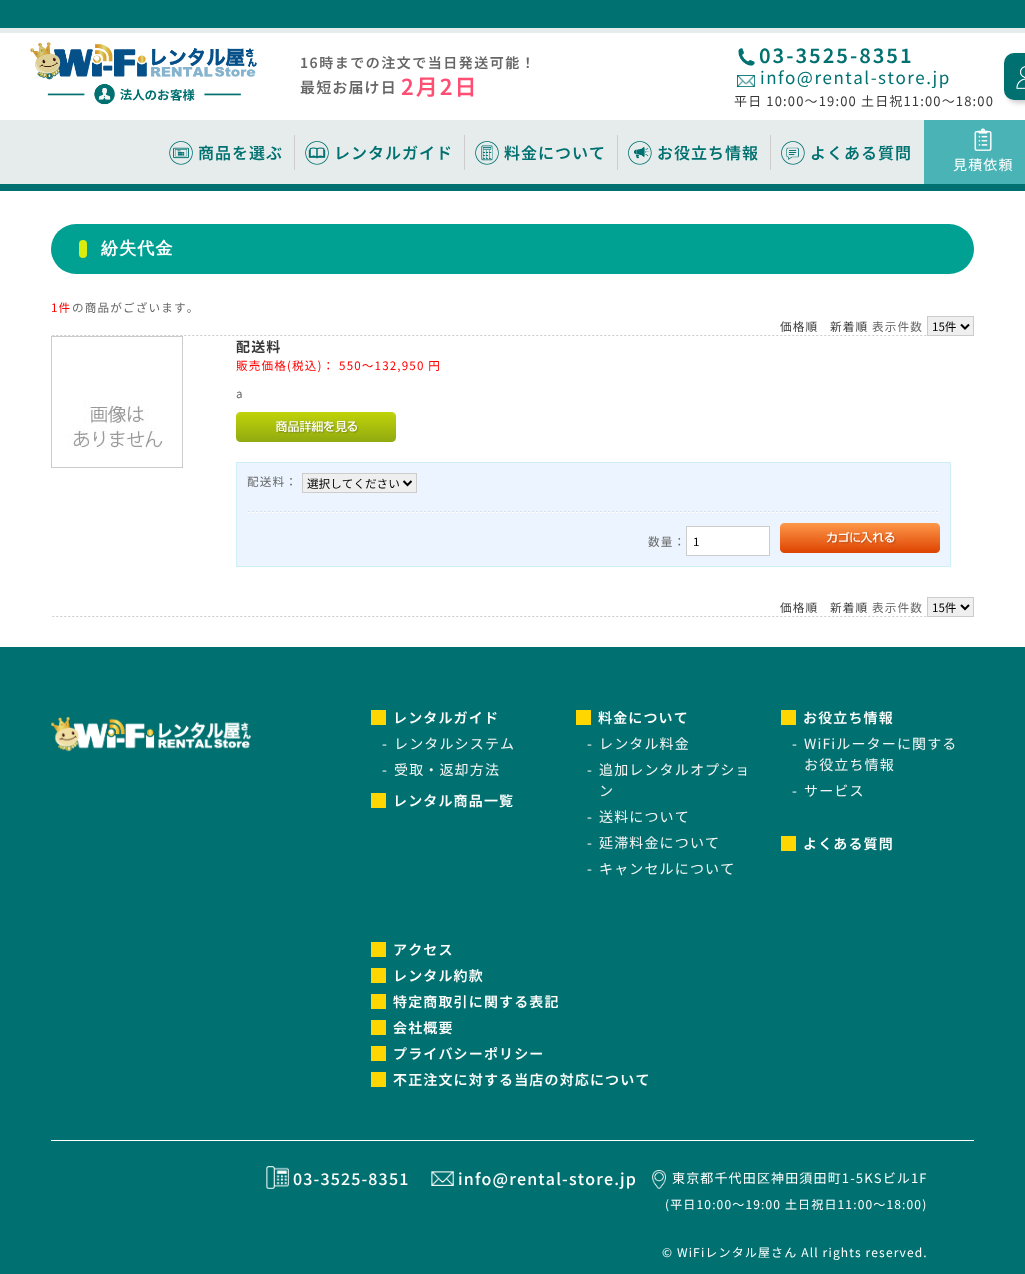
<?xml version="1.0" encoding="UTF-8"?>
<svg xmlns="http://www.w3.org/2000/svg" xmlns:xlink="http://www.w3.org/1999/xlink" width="1025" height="1274">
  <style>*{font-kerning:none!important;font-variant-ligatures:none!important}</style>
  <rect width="100%" height="100%" fill="#ffffff" />
  <rect width="1025" height="28" fill="#007171" />
  <rect y="28" width="1025" height="5" fill="#e6ecec" />
  <image x="30" y="42" width="227" height="63" xlink:href="image1.png" />
  <image x="738" y="48" width="17" height="18" xlink:href="image2.png" />
  <image x="737" y="75" width="18" height="12" xlink:href="image3.png" />
  <rect x="1007" y="56" width="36" height="47" rx="10" fill="#cdcdcd" filter="blur(2.5px)" />
  <rect x="1004" y="53" width="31" height="47" rx="10" fill="#007170" />
  <image x="1016" y="66" width="9" height="23" xlink:href="image4.png" />
  <rect y="120" width="924" height="64" fill="#e6ecec" />
  <rect y="184" width="1025" height="7" fill="#007170" />
  <image x="169" y="141" width="24" height="24" xlink:href="image5.png" />
  <rect x="294" y="135" width="1" height="35" fill="#cccccc" />
  <image x="305" y="141" width="24" height="24" xlink:href="image6.png" />
  <rect x="464" y="135" width="1" height="35" fill="#cccccc" />
  <image x="475" y="141" width="24" height="24" xlink:href="image7.png" />
  <rect x="617" y="135" width="1" height="35" fill="#cccccc" />
  <image x="628" y="141" width="24" height="24" xlink:href="image8.png" />
  <rect x="770" y="135" width="1" height="35" fill="#cccccc" />
  <image x="781" y="141" width="24" height="24" xlink:href="image9.png" />
  <rect x="924" y="120" width="101" height="64" fill="#49b3b6" />
  <image x="974" y="128" width="18" height="23" xlink:href="image10.png" />
  <rect x="51" y="224" width="923" height="50" rx="25" fill="#00a192" />
  <rect x="79" y="240" width="8" height="18" rx="4" fill="#dbec0f" />
  <image x="52" y="335" width="875" height="1" xlink:href="image11.png" />
  <rect x="927.5" y="316.5" width="46" height="19" fill="#efefef" stroke="#cccccc" />
  <path d="M 961 324.5 l 4 4 l 4 -4" fill="none" stroke="#000000" stroke-width="2" />
  <rect x="51.5" y="336.5" width="131" height="131" fill="none" stroke="#cccccc" />
  <image x="68" y="401" width="96" height="48" xlink:href="image12.png" />
  <image x="236" y="412" width="160" height="30" xlink:href="image13.png" />
  <rect x="236.5" y="462.5" width="714" height="104" fill="#ecf5ff" stroke="#cef0f4" />
  <image x="247" y="511" width="693" height="2" xlink:href="image14.png" />
  <rect x="302.5" y="473.5" width="114" height="19" fill="#efefef" stroke="#cccccc" />
  <path d="M 403.5 481 l 4 4 l 4 -4" fill="none" stroke="#000000" stroke-width="2" />
  <rect x="686.5" y="526.5" width="83" height="29" fill="#ffffff" stroke="#cccccc" />
  <image x="780" y="523" width="160" height="30" xlink:href="image15.png" />
  <image x="52" y="616" width="875" height="1" xlink:href="image11.png" />
  <rect x="927.5" y="597.5" width="46" height="19" fill="#efefef" stroke="#cccccc" />
  <path d="M 961 605 l 4 4 l 4 -4" fill="none" stroke="#000000" stroke-width="2" />
  <rect y="647" width="1025" height="627" fill="#007170" />
  <rect x="51" y="1140" width="923" height="1" fill="#ffffff" />
  <image x="51" y="717" width="200" height="35" xlink:href="image16.png" />
  <rect x="371" y="710" width="15" height="15" fill="#ffd600" />
  <rect x="371" y="793" width="15" height="15" fill="#ffd600" />
  <rect x="576" y="710" width="15" height="15" fill="#ffd600" />
  <rect x="781" y="710" width="15" height="15" fill="#ffd600" />
  <rect x="781" y="836" width="15" height="15" fill="#ffd600" />
  <rect x="371" y="942" width="15" height="15" fill="#ffd600" />
  <rect x="371" y="968" width="15" height="15" fill="#ffd600" />
  <rect x="371" y="994" width="15" height="15" fill="#ffd600" />
  <rect x="371" y="1020" width="15" height="15" fill="#ffd600" />
  <rect x="371" y="1046" width="15" height="15" fill="#ffd600" />
  <rect x="371" y="1072" width="15" height="15" fill="#ffd600" />
  <image x="266" y="1166" width="23" height="23" xlink:href="image17.png" />
  <image x="431" y="1171" width="23" height="15" xlink:href="image18.png" />
  <image x="652" y="1170" width="14" height="19" xlink:href="image19.png" />
  <text x="300" y="68" style="font-family: Noto Sans JP; font-size: 14px; font-weight: 600; letter-spacing: 1.5px; fill: #666666">16時までの注文で当日発送可能！</text>
  <text x="300" y="93" style="font-family: Noto Sans JP; font-size: 15px; font-weight: 600; letter-spacing: 1.15px; fill: #666666">最短お届け日</text>
  <text x="401" y="95" style="font-family: Noto Sans JP; font-size: 22px; font-weight: 600; letter-spacing: 2px; fill: #ff4e73">2月2日</text>
  <text x="759" y="63" style="font-family: Noto Sans JP; font-size: 20px; font-weight: 600; letter-spacing: 2px; fill: #007170">03-3525-8351</text>
  <text x="760" y="84" style="font-family: Noto Sans JP; font-size: 17px; letter-spacing: 1.5px; fill: #007170">info@rental-store.jp</text>
  <text x="734" y="106" style="font-family: Noto Sans JP; font-size: 13px; letter-spacing: 1.15px; fill: #393939">平日 10:00～19:00 土日祝11:00～18:00</text>
  <text x="198" y="159" style="font-family: Noto Sans JP; font-size: 16px; font-weight: 600; letter-spacing: 1px; fill: #007170">商品を選ぶ</text>
  <text x="334" y="159" style="font-family: Noto Sans JP; font-size: 16px; font-weight: 600; letter-spacing: 1px; fill: #007170">レンタルガイド</text>
  <text x="504" y="159" style="font-family: Noto Sans JP; font-size: 16px; font-weight: 600; letter-spacing: 1px; fill: #007170">料金について</text>
  <text x="657" y="159" style="font-family: Noto Sans JP; font-size: 16px; font-weight: 600; letter-spacing: 1px; fill: #007170">お役立ち情報</text>
  <text x="810" y="159" style="font-family: Noto Sans JP; font-size: 16px; font-weight: 600; letter-spacing: 1px; fill: #007170">よくある質問</text>
  <text x="953" y="170" style="font-family: Noto Sans JP; font-size: 14px; letter-spacing: 1.15px; fill: #ffffff">見積依頼</text>
  <text x="101" y="254" style="font-family: WenQuanYi Zen Hei; font-size: 17px; font-weight: bold; letter-spacing: 1.15px; fill: #ffffff">紛失代金</text>
  <text x="51" y="312" style="font-family: Noto Sans JP; font-size: 11.6px; letter-spacing: 1.15px; fill: #ff0000">1件</text>
  <text x="72" y="312" style="font-family: Noto Sans JP; font-size: 11.6px; letter-spacing: 1.15px; fill: #666666">の商品がございます。</text>
  <text x="780" y="331" style="font-family: Noto Sans JP; font-size: 11.6px; letter-spacing: 1.15px; fill: #393939">価格順</text>
  <text x="830" y="331" style="font-family: Noto Sans JP; font-size: 11.6px; letter-spacing: 1.15px; fill: #393939">新着順</text>
  <text x="872" y="331" style="font-family: Noto Sans JP; font-size: 11.6px; letter-spacing: 1.15px; fill: #666666">表示件数</text>
  <text x="932" y="331" style="font-family: Noto Sans JP; font-size: 11.6px; fill: #000000">15件</text>
  <text x="236" y="352" style="font-family: Noto Sans JP; font-size: 14px; font-weight: bold; letter-spacing: 1.15px; fill: #393939">配送料</text>
  <text x="236" y="370" style="font-family: Noto Sans JP; font-size: 11.6px; letter-spacing: 1.15px; fill: #ff0000">販売価格(税込)： 550～132,950 円</text>
  <text x="236" y="398" style="font-family: Noto Sans JP; font-size: 11.6px; letter-spacing: 1.15px; fill: #666666">a</text>
  <text x="247" y="486" style="font-family: Noto Sans JP; font-size: 11.6px; letter-spacing: 1.15px; fill: #666666">配送料：</text>
  <text x="307" y="488" style="font-family: Noto Sans JP; font-size: 11.6px; fill: #000000">選択してください</text>
  <text x="648" y="546" style="font-family: Noto Sans JP; font-size: 11.6px; letter-spacing: 1.15px; fill: #666666">数量：</text>
  <text x="693" y="546" style="font-family: Noto Sans JP; font-size: 11.6px; fill: #000000">1</text>
  <text x="780" y="612" style="font-family: Noto Sans JP; font-size: 11.6px; letter-spacing: 1.15px; fill: #393939">価格順</text>
  <text x="830" y="612" style="font-family: Noto Sans JP; font-size: 11.6px; letter-spacing: 1.15px; fill: #393939">新着順</text>
  <text x="872" y="612" style="font-family: Noto Sans JP; font-size: 11.6px; letter-spacing: 1.15px; fill: #666666">表示件数</text>
  <text x="932" y="612" style="font-family: Noto Sans JP; font-size: 11.6px; fill: #000000">15件</text>
  <text x="393" y="723" style="font-family: Noto Sans JP; font-size: 14px; font-weight: 600; letter-spacing: 1.15px; fill: #ffffff">レンタルガイド</text>
  <text x="382" y="749" style="font-family: Noto Sans JP; font-size: 14px; letter-spacing: 1.15px; fill: #f5f5f5">-</text>
  <text x="394" y="749" style="font-family: Noto Sans JP; font-size: 14px; letter-spacing: 1.15px; fill: #f5f5f5">レンタルシステム</text>
  <text x="382" y="775" style="font-family: Noto Sans JP; font-size: 14px; letter-spacing: 1.15px; fill: #f5f5f5">-</text>
  <text x="394" y="775" style="font-family: Noto Sans JP; font-size: 14px; letter-spacing: 1.15px; fill: #f5f5f5">受取・返却方法</text>
  <text x="393" y="806" style="font-family: Noto Sans JP; font-size: 14px; font-weight: 600; letter-spacing: 1.15px; fill: #ffffff">レンタル商品一覧</text>
  <text x="598" y="723" style="font-family: Noto Sans JP; font-size: 14px; font-weight: 600; letter-spacing: 1.15px; fill: #ffffff">料金について</text>
  <text x="587" y="749" style="font-family: Noto Sans JP; font-size: 14px; letter-spacing: 1.15px; fill: #f5f5f5">-</text>
  <text x="599" y="749" style="font-family: Noto Sans JP; font-size: 14px; letter-spacing: 1.15px; fill: #f5f5f5">レンタル料金</text>
  <text x="587" y="775" style="font-family: Noto Sans JP; font-size: 14px; letter-spacing: 1.15px; fill: #f5f5f5">-</text>
  <text x="599" y="775" style="font-family: Noto Sans JP; font-size: 14px; letter-spacing: 1.15px; fill: #f5f5f5">追加レンタルオプショ</text>
  <text x="599" y="796" style="font-family: Noto Sans JP; font-size: 14px; letter-spacing: 1.15px; fill: #f5f5f5">ン</text>
  <text x="587" y="822" style="font-family: Noto Sans JP; font-size: 14px; letter-spacing: 1.15px; fill: #f5f5f5">-</text>
  <text x="599" y="822" style="font-family: Noto Sans JP; font-size: 14px; letter-spacing: 1.15px; fill: #f5f5f5">送料について</text>
  <text x="587" y="848" style="font-family: Noto Sans JP; font-size: 14px; letter-spacing: 1.15px; fill: #f5f5f5">-</text>
  <text x="599" y="848" style="font-family: Noto Sans JP; font-size: 14px; letter-spacing: 1.15px; fill: #f5f5f5">延滞料金について</text>
  <text x="587" y="874" style="font-family: Noto Sans JP; font-size: 14px; letter-spacing: 1.15px; fill: #f5f5f5">-</text>
  <text x="599" y="874" style="font-family: Noto Sans JP; font-size: 14px; letter-spacing: 1.15px; fill: #f5f5f5">キャンセルについて</text>
  <text x="803" y="723" style="font-family: Noto Sans JP; font-size: 14px; font-weight: 600; letter-spacing: 1.15px; fill: #ffffff">お役立ち情報</text>
  <text x="792" y="749" style="font-family: Noto Sans JP; font-size: 14px; letter-spacing: 1.15px; fill: #f5f5f5">-</text>
  <text x="804" y="749" style="font-family: Noto Sans JP; font-size: 14px; letter-spacing: 1.15px; fill: #f5f5f5">WiFiルーターに関する</text>
  <text x="804" y="770" style="font-family: Noto Sans JP; font-size: 14px; letter-spacing: 1.15px; fill: #f5f5f5">お役立ち情報</text>
  <text x="792" y="796" style="font-family: Noto Sans JP; font-size: 14px; letter-spacing: 1.15px; fill: #f5f5f5">-</text>
  <text x="804" y="796" style="font-family: Noto Sans JP; font-size: 14px; letter-spacing: 1.15px; fill: #f5f5f5">サービス</text>
  <text x="803" y="849" style="font-family: Noto Sans JP; font-size: 14px; font-weight: 600; letter-spacing: 1.15px; fill: #ffffff">よくある質問</text>
  <text x="393" y="955" style="font-family: Noto Sans JP; font-size: 14px; font-weight: 600; letter-spacing: 1.15px; fill: #ffffff">アクセス</text>
  <text x="393" y="981" style="font-family: Noto Sans JP; font-size: 14px; font-weight: 600; letter-spacing: 1.15px; fill: #ffffff">レンタル約款</text>
  <text x="393" y="1007" style="font-family: Noto Sans JP; font-size: 14px; font-weight: 600; letter-spacing: 1.15px; fill: #ffffff">特定商取引に関する表記</text>
  <text x="393" y="1033" style="font-family: Noto Sans JP; font-size: 14px; font-weight: 600; letter-spacing: 1.15px; fill: #ffffff">会社概要</text>
  <text x="393" y="1059" style="font-family: Noto Sans JP; font-size: 14px; font-weight: 600; letter-spacing: 1.15px; fill: #ffffff">プライバシーポリシー</text>
  <text x="393" y="1085" style="font-family: Noto Sans JP; font-size: 14px; font-weight: 600; letter-spacing: 1.15px; fill: #ffffff">不正注文に対する当店の対応について</text>
  <text x="293" y="1185" style="font-family: Noto Sans JP; font-size: 16px; font-weight: 500; letter-spacing: 1.15px; fill: #ffffff">03-3525-8351</text>
  <text x="458" y="1185" style="font-family: Noto Sans JP; font-size: 16px; font-weight: 500; letter-spacing: 1.15px; fill: #ffffff">info@rental-store.jp</text>
  <text x="672" y="1183" style="font-family: Noto Sans JP; font-size: 13px; letter-spacing: 1.15px; fill: #ffffff">東京都千代田区神田須田町1-5KSビル1F</text>
  <text x="665" y="1209" style="font-family: Noto Sans JP; font-size: 12px; letter-spacing: 1.15px; fill: #ffffff">(平日10:00～19:00 土日祝日11:00～18:00)</text>
  <text x="662" y="1257" style="font-family: Noto Sans JP; font-size: 12px; letter-spacing: 1.15px; fill: #ffffff">© WiFiレンタル屋さん All rights reserved.</text>
</svg>
